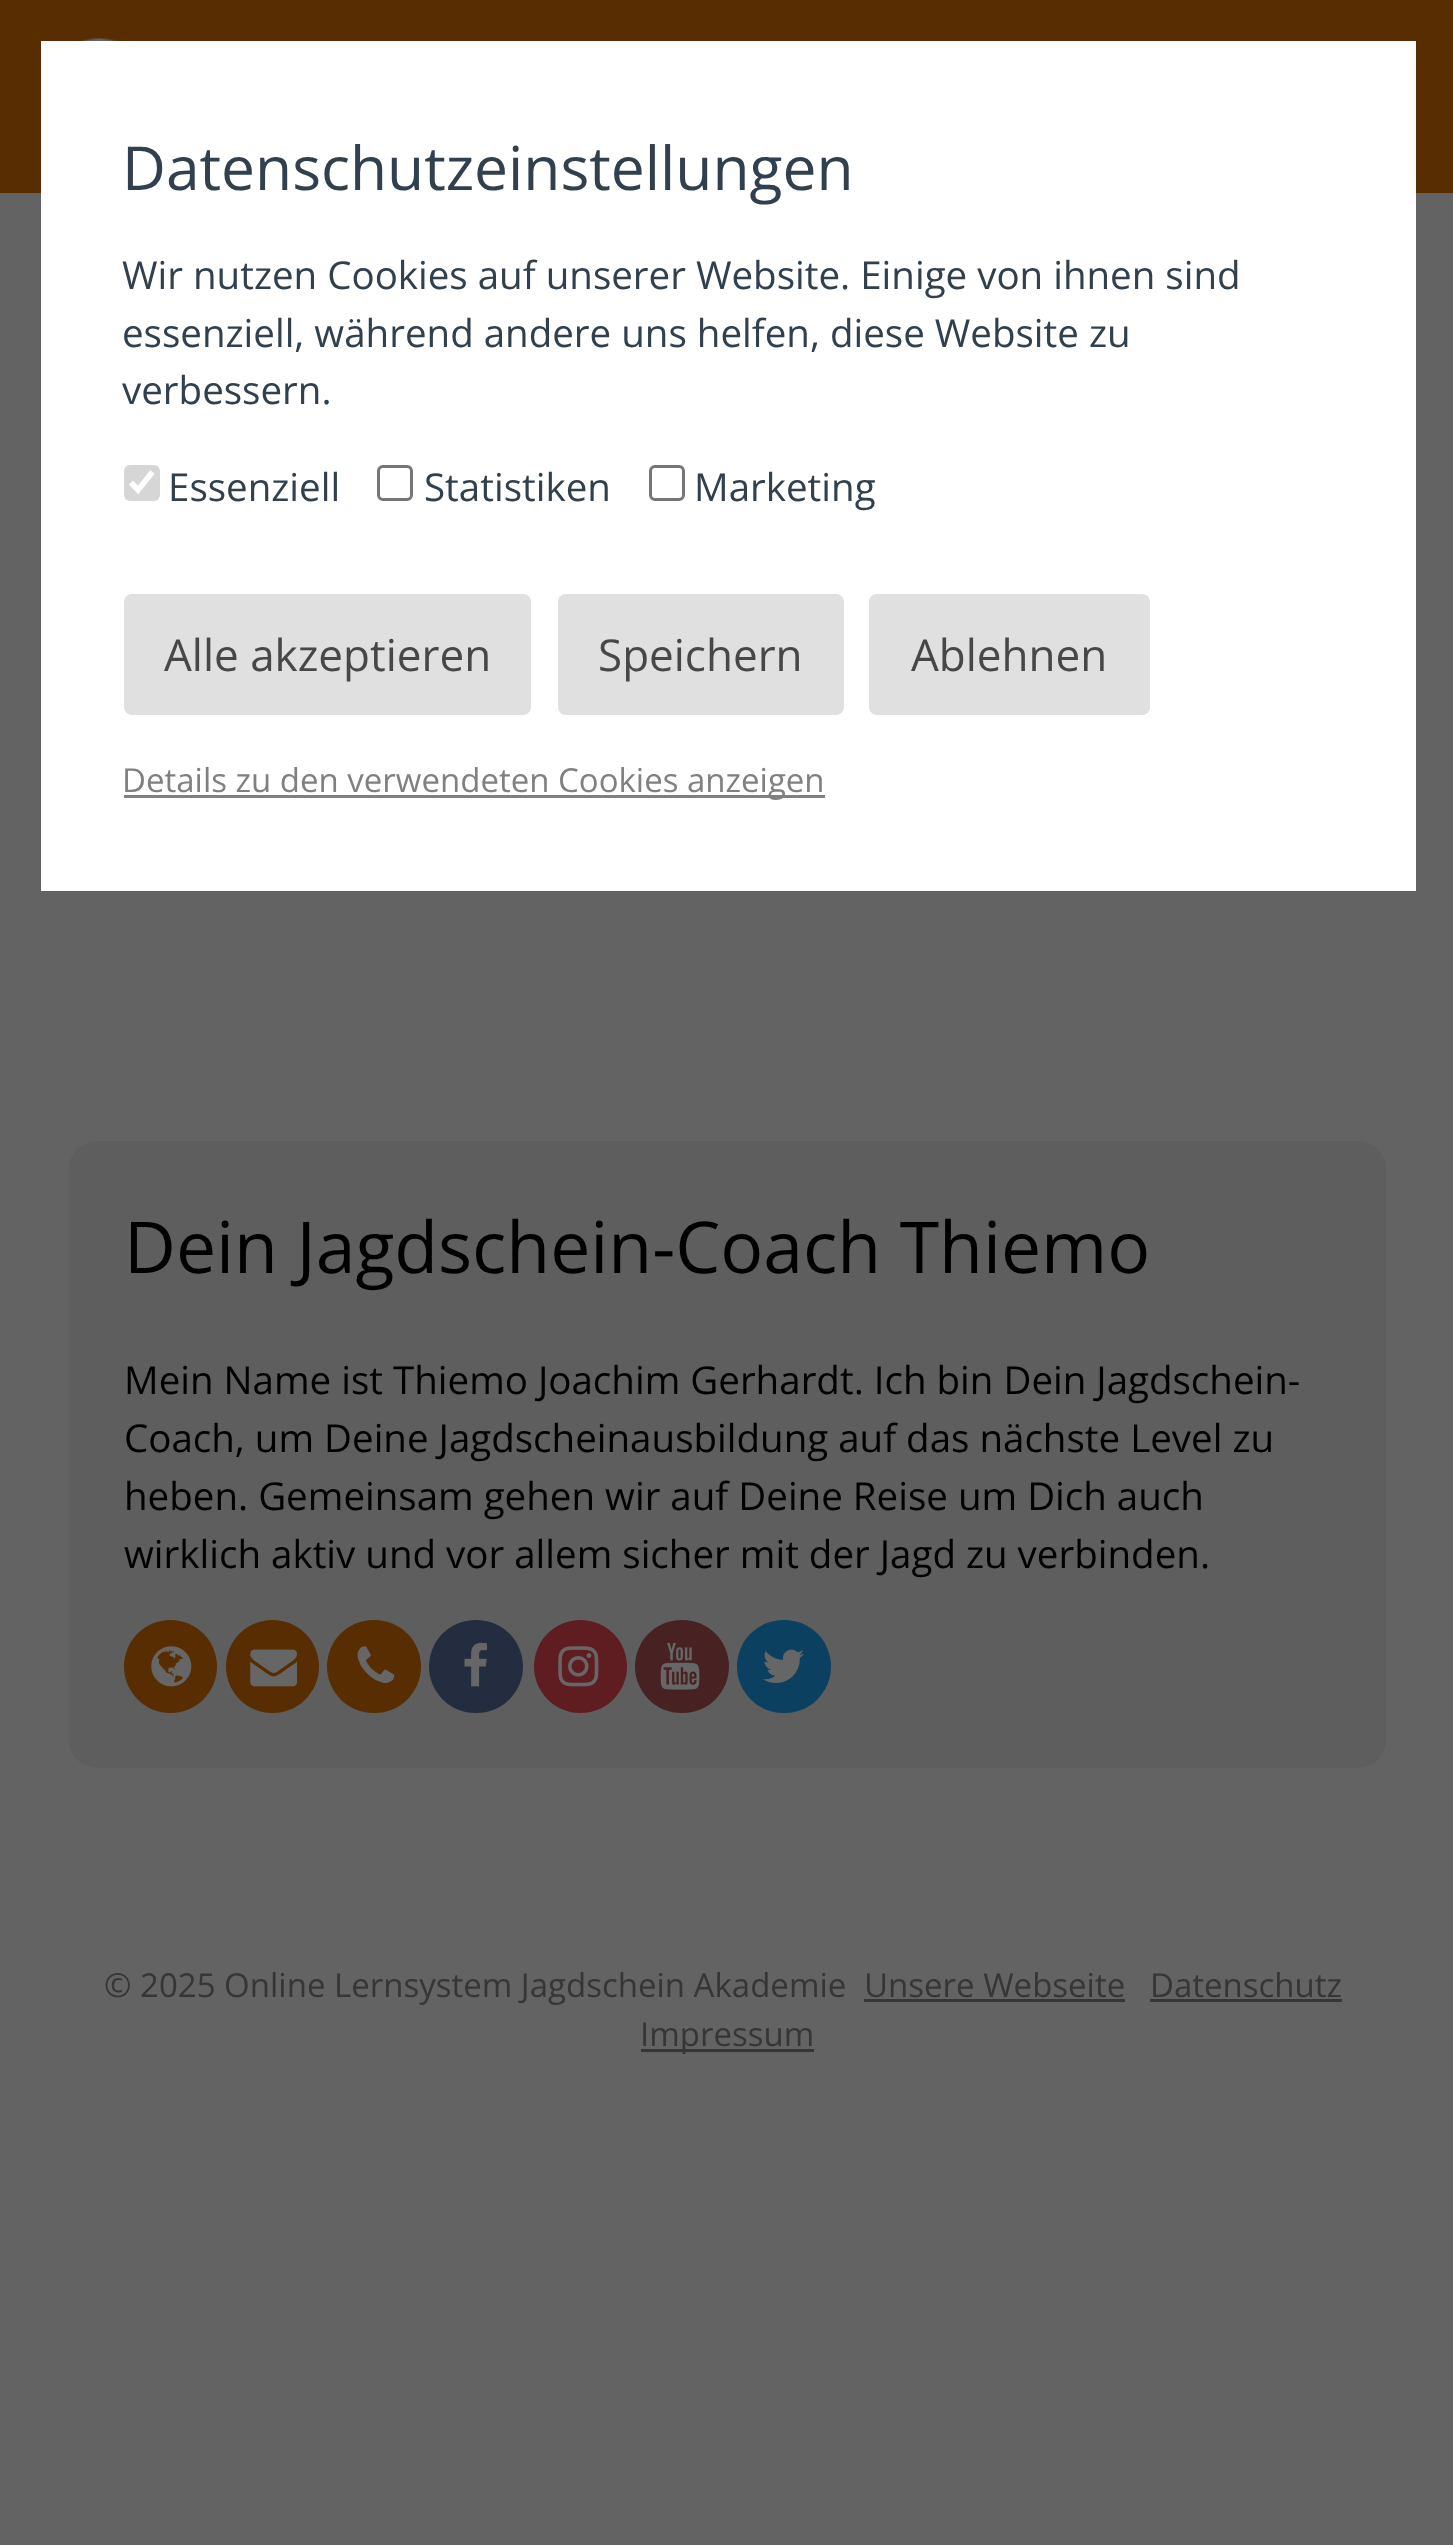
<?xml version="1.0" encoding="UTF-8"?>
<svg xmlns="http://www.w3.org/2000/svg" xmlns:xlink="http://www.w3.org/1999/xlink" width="1453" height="2545">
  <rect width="100%" height="100%" fill="#636363" />
  <rect width="1453" height="193" fill="#582d01" />
  <image x="80" y="38" width="38" height="3" xlink:href="image1.png" />
  <rect x="41" y="41" width="1375" height="850" fill="#ffffff" />
  <rect x="124" y="465" width="36" height="36" rx="6" fill="#d6d6d6" />
  <path d="M 131 482.5 l 7 7.5 l 14.5 -18" fill="none" stroke="#ffffff" stroke-width="5.7" />
  <rect x="378.5" y="466.5" width="33" height="33" rx="4.5" fill="none" stroke="#767676" stroke-width="3" />
  <rect x="650.5" y="466.5" width="33" height="33" rx="4.5" fill="none" stroke="#767676" stroke-width="3" />
  <rect x="124" y="594" width="407" height="121" rx="8" fill="#e0e0e0" />
  <rect x="558" y="594" width="286" height="121" rx="8" fill="#e0e0e0" />
  <rect x="869" y="594" width="281" height="121" rx="8" fill="#e0e0e0" />
  <rect x="124" y="795" width="701" height="3" fill="#808080" />
  <rect x="69" y="1141" width="1317" height="627" rx="28" fill="#5e5e5e" />
  <circle cx="170.5" cy="1666.5" r="46.5" fill="#582d01" />
  <image x="151" y="1646" width="41" height="41" xlink:href="image2.png" />
  <circle cx="272.5" cy="1666.5" r="46.5" fill="#582d01" />
  <image x="250" y="1649" width="47" height="38" xlink:href="image3.png" />
  <rect x="327" y="1620" width="94" height="93" rx="46.5" fill="#582d01" />
  <image x="357" y="1646" width="38" height="37" xlink:href="image4.png" />
  <rect x="429" y="1620" width="94" height="93" rx="46.5" fill="#242d3f" />
  <image x="464" y="1642" width="23" height="45" xlink:href="image5.png" />
  <circle cx="580.5" cy="1666.5" r="46.5" fill="#5f1d22" />
  <image x="558" y="1646" width="41" height="41" xlink:href="image6.png" />
  <rect x="635" y="1620" width="94" height="93" rx="46.5" fill="#482222" />
  <image x="660" y="1642" width="40" height="48" xlink:href="image7.png" />
  <rect x="737" y="1620" width="94" height="93" rx="46.5" fill="#0c4061" />
  <image x="763" y="1649" width="41" height="34" xlink:href="image8.png" />
  <rect x="864" y="1999" width="261" height="3" fill="#363636" />
  <rect x="1150" y="1999" width="192" height="3" fill="#363636" />
  <rect x="641" y="2049" width="173" height="3" fill="#363636" />
  <text x="122" y="190" style="font-family: Open Sans; font-size: 60.5px; fill: #31404e">Datenschutzeinstellungen</text>
  <text x="122" y="289" style="font-family: Open Sans; font-size: 38.5px; fill: #31404e">Wir nutzen Cookies auf unserer Website. Einige von ihnen sind</text>
  <text x="122" y="347" style="font-family: Open Sans; font-size: 38.5px; fill: #31404e">essenziell, während andere uns helfen, diese Website zu</text>
  <text x="122" y="404" style="font-family: Open Sans; font-size: 38.5px; fill: #31404e">verbessern.</text>
  <text x="168" y="501" style="font-family: Open Sans; font-size: 38.5px; fill: #31404e">Essenziell</text>
  <text x="424" y="501" style="font-family: Open Sans; font-size: 38.5px; fill: #31404e">Statistiken</text>
  <text x="694" y="501" style="font-family: Open Sans; font-size: 38.5px; fill: #31404e">Marketing</text>
  <text x="164" y="671" style="font-family: Open Sans; font-size: 44px; fill: #474747">Alle akzeptieren</text>
  <text x="598" y="671" style="font-family: Open Sans; font-size: 44px; fill: #474747">Speichern</text>
  <text x="911" y="671" style="font-family: Open Sans; font-size: 44px; fill: #474747">Ablehnen</text>
  <text x="122" y="792" style="font-family: Open Sans; font-size: 33px; fill: #808080">Details zu den verwendeten Cookies anzeigen</text>
  <text x="124" y="1273" style="font-family: Open Sans; font-size: 71.5px; fill: #000000">Dein Jagdschein-Coach Thiemo</text>
  <text x="124" y="1394" style="font-family: Open Sans; font-size: 38.5px; fill: #000000">Mein Name ist Thiemo Joachim Gerhardt. Ich bin Dein Jagdschein-</text>
  <text x="124" y="1452" style="font-family: Open Sans; font-size: 38.5px; fill: #000000">Coach, um Deine Jagdscheinausbildung auf das nächste Level zu</text>
  <text x="124" y="1510" style="font-family: Open Sans; font-size: 38.5px; fill: #000000">heben. Gemeinsam gehen wir auf Deine Reise um Dich auch</text>
  <text x="124" y="1568" style="font-family: Open Sans; font-size: 38.5px; fill: #000000">wirklich aktiv und vor allem sicher mit der Jagd zu verbinden.</text>
  <text x="104" y="1997" style="font-family: Open Sans; font-size: 33px; fill: #363636">© 2025 Online Lernsystem Jagdschein Akademie</text>
  <text x="864" y="1997" style="font-family: Open Sans; font-size: 33px; fill: #363636">Unsere Webseite</text>
  <text x="1150" y="1997" style="font-family: Open Sans; font-size: 33px; fill: #363636">Datenschutz</text>
  <text x="640" y="2046" style="font-family: Open Sans; font-size: 33px; fill: #363636">Impressum</text>
</svg>
